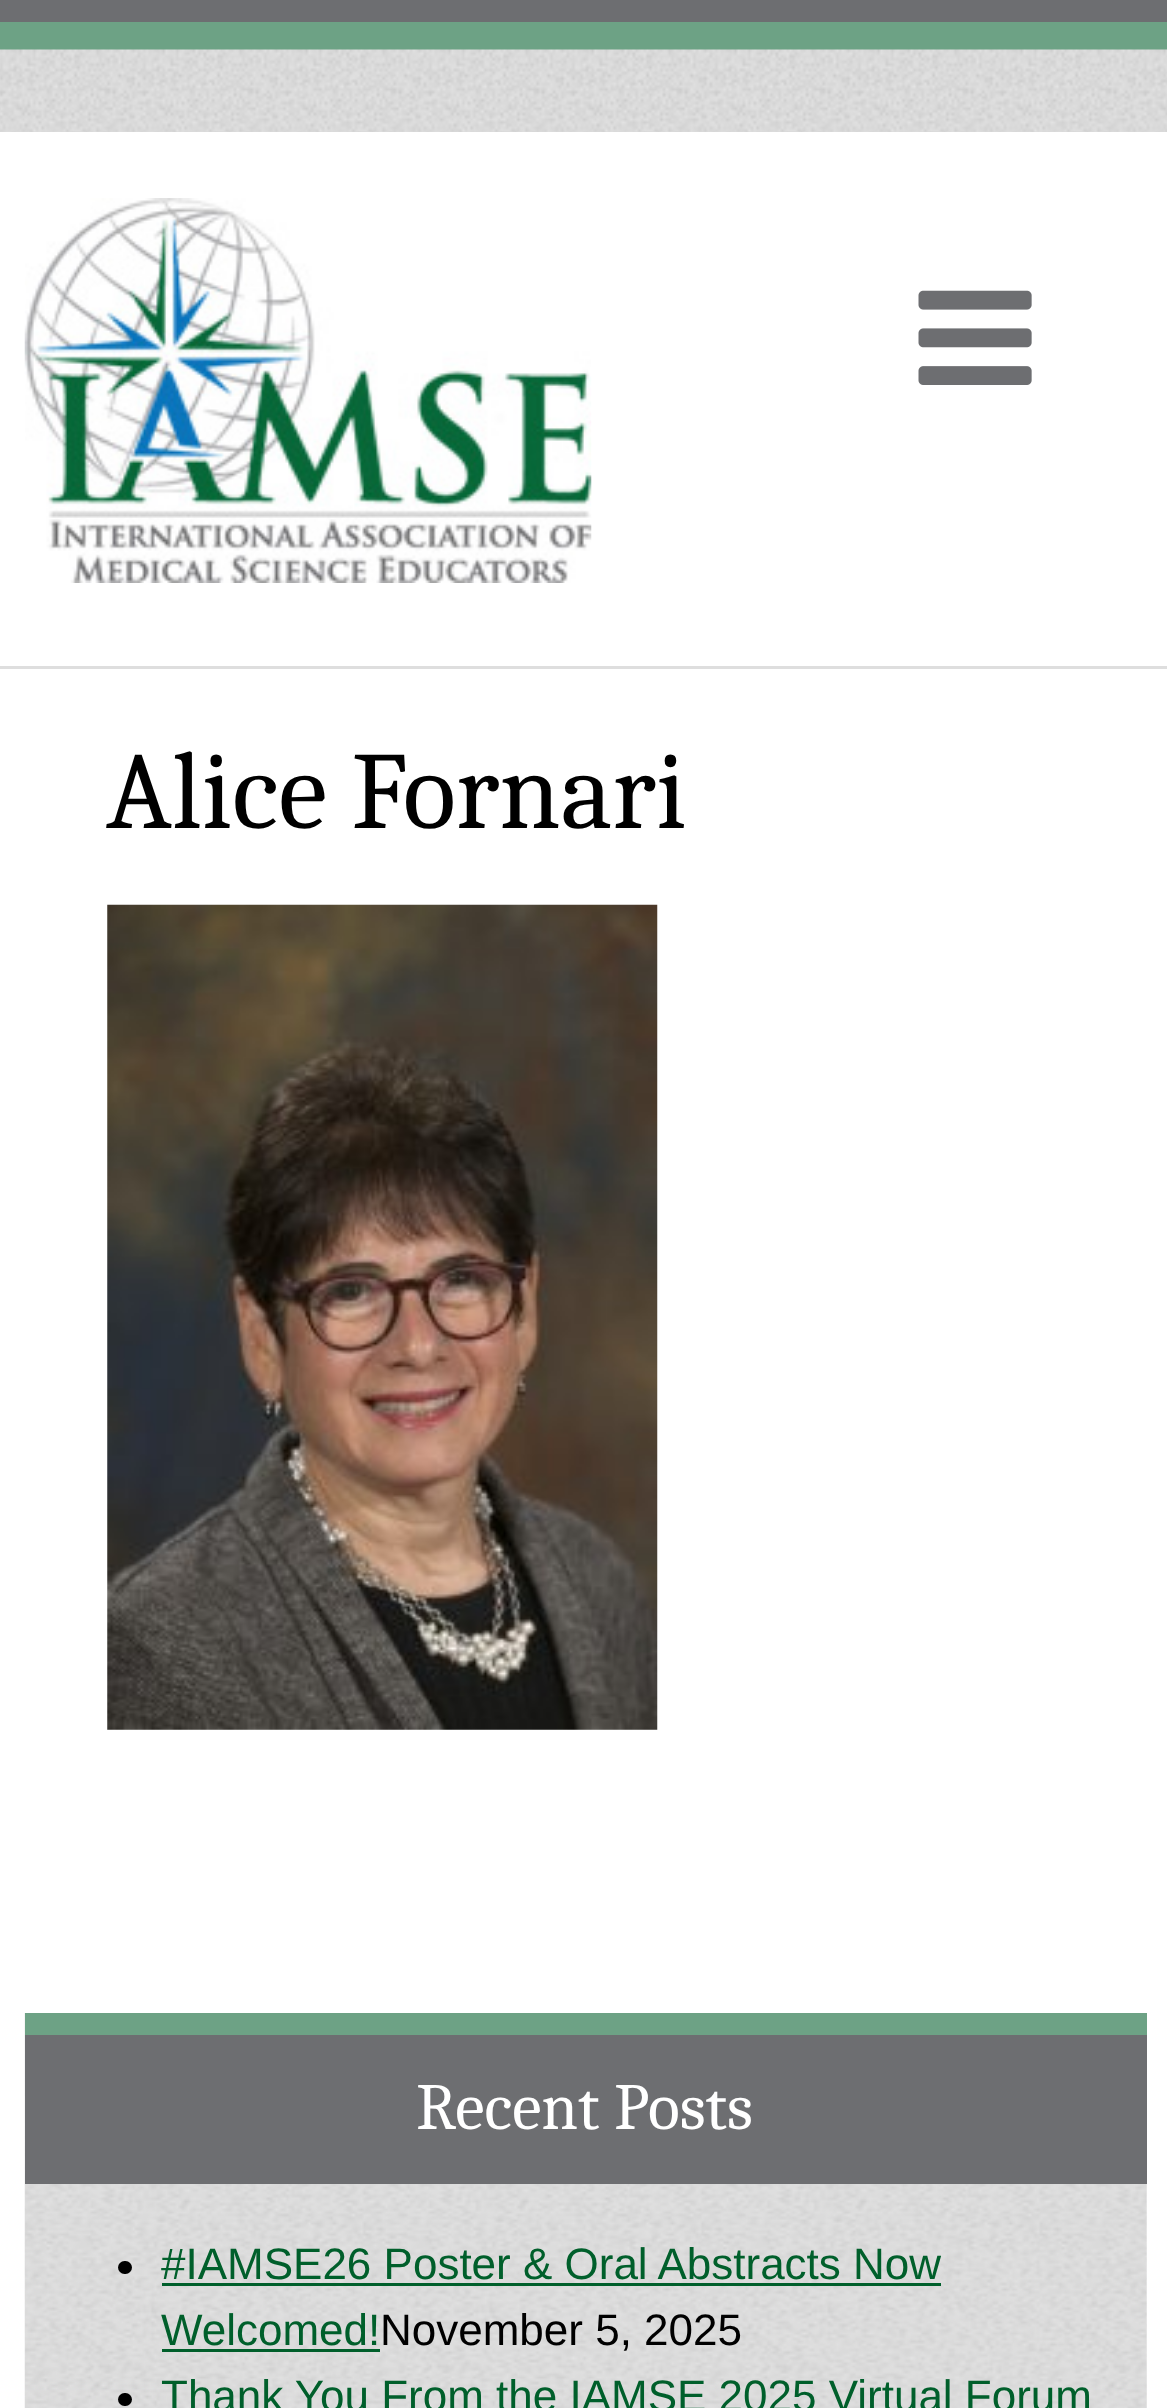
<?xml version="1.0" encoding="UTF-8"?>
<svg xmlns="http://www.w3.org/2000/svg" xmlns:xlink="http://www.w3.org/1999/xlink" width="1167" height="2408">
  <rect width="100%" height="100%" fill="#6d6e71" />
  <rect y="132" width="1167" height="2276" fill="#ffffff" />
  <rect y="666" width="1167" height="3" fill="#dedede" />
  <rect y="22" width="1167" height="28" fill="#6da285" />
  <image x="0" y="49" width="1167" height="83" xlink:href="image1.png" />
  <image x="918" y="290" width="114" height="95" xlink:href="image2.png" />
  <image x="24" y="198" width="568" height="385" xlink:href="image3.png" />
  <image x="107" y="904" width="551" height="826" xlink:href="image4.png" />
  <image x="24" y="2013" width="1123" height="395" xlink:href="image5.png" />
  <rect x="25" y="2035" width="1122" height="149" fill="#6d6e71" />
  <rect x="25" y="2013" width="1122" height="22" fill="#6da285" />
  <rect x="118" y="2261" width="14" height="13" rx="6.5" fill="#000000" />
  <rect x="162" y="2283" width="779" height="3" fill="#005f2b" />
  <rect x="162" y="2349" width="218" height="3" fill="#005f2b" />
  <rect x="118" y="2393" width="14" height="13" rx="6.5" fill="#000000" />
  <text x="106" y="828" style="font-family: Caladea; font-size: 110px; fill: #000000">Alice Fornari</text>
  <text x="416" y="2129" style="font-family: Caladea; font-size: 66px; fill: #ffffff">Recent Posts</text>
  <text x="161" y="2279" style="font-family: Liberation Sans; font-size: 44px; fill: #005f2b">#IAMSE26 Poster &amp; Oral Abstracts Now</text>
  <text x="161" y="2345" style="font-family: Liberation Sans; font-size: 44px; fill: #005f2b">Welcomed!</text>
  <text x="380" y="2345" style="font-family: Liberation Sans; font-size: 44px; fill: #000000">November 5, 2025</text>
  <text x="161" y="2411" style="font-family: Liberation Sans; font-size: 44px; fill: #005f2b">Thank You From the IAMSE 2025 Virtual Forum</text>
</svg>
